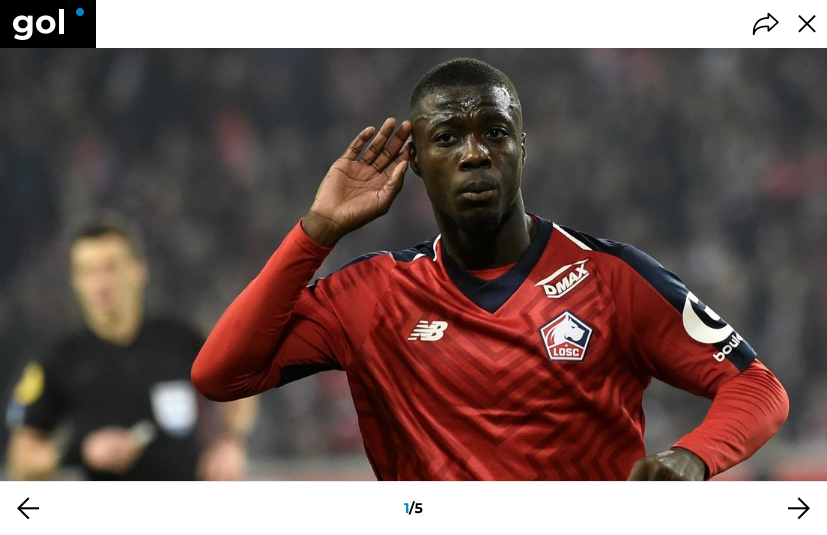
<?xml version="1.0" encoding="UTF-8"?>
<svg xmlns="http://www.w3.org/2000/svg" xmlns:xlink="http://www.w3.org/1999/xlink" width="827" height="535">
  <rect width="100%" height="100%" fill="#ffffff" />
  <image x="0" y="0" width="96" height="48" xlink:href="image1.png" />
  <image x="752" y="12" width="27" height="24" xlink:href="image2.png" />
  <image x="798" y="15" width="18" height="18" xlink:href="image3.png" />
  <image x="0" y="48" width="827" height="433" xlink:href="image4.png" />
  <rect y="481" width="827" height="1" fill="#e6e6e6" />
  <image x="17" y="497" width="22" height="23" xlink:href="image5.png" />
  <image x="788" y="497" width="22" height="23" xlink:href="image6.png" />
  <text x="404" y="513" style="font-family: Montserrat; font-size: 14px; font-weight: bold; fill: #0486cf">1</text>
  <text x="409" y="513" style="font-family: Montserrat; font-size: 14px; font-weight: bold; fill: #000000">/5</text>
</svg>
